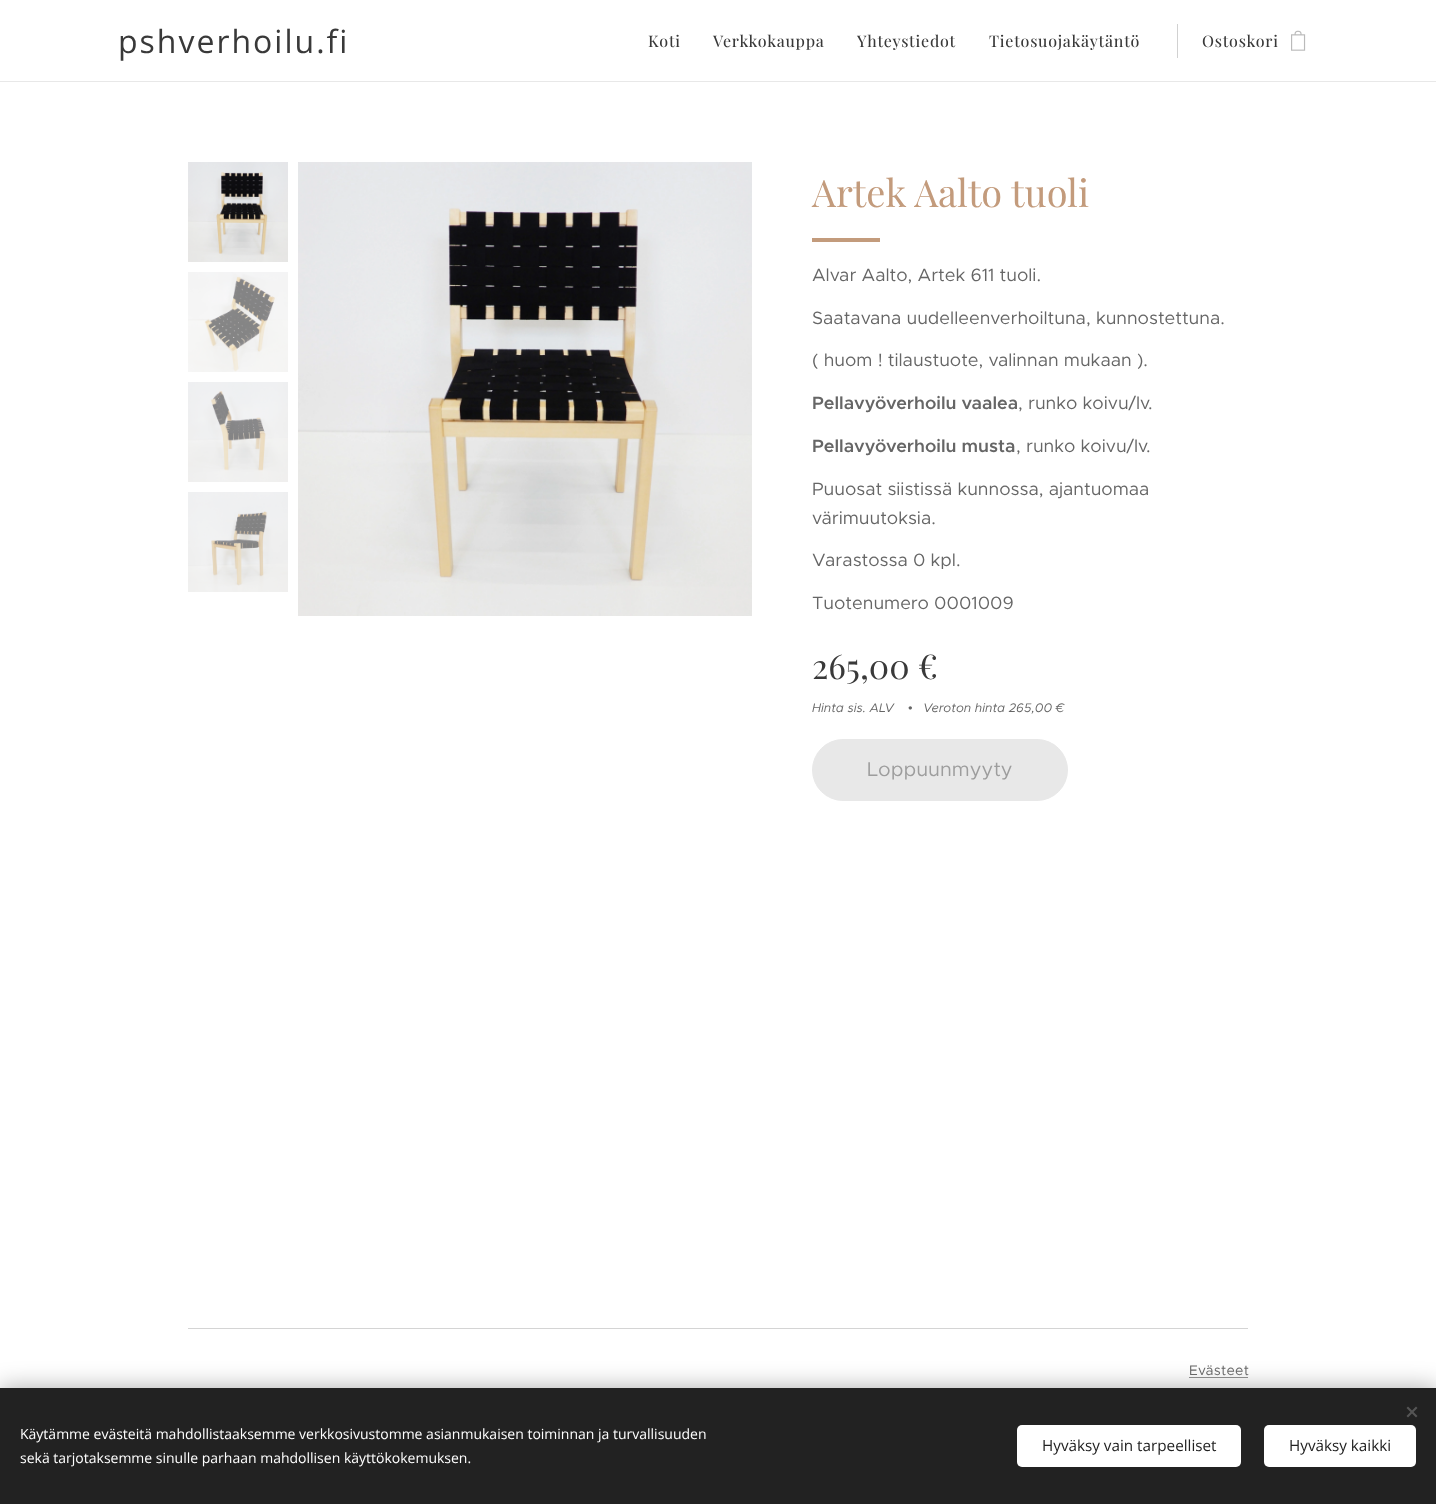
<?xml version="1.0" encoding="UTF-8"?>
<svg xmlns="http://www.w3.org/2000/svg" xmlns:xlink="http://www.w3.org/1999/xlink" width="1436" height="1504">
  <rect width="100%" height="100%" fill="#ffffff" />
  <rect x="1177" y="24" width="1" height="34" fill="#d1d1d1" />
  <image x="1291" y="30" width="15" height="21" xlink:href="image1.png" />
  <rect y="81" width="1436" height="1" fill="#e8e8e8" />
  <image x="188" y="162" width="100" height="100" xlink:href="image2.png" />
  <image x="188" y="272" width="100" height="100" xlink:href="image3.png" />
  <image x="188" y="382" width="100" height="100" xlink:href="image4.png" />
  <image x="188" y="492" width="100" height="100" xlink:href="image5.png" />
  <image x="298" y="162" width="454" height="454" xlink:href="image6.png" />
  <rect x="812" y="238" width="68" height="4" fill="#c39b7c" />
  <rect x="812.5" y="739.5" width="255" height="61" rx="30.5" fill="#e8e8e8" stroke="#e8e8e8" />
  <rect x="188" y="1328" width="1060" height="1" fill="#d4d4d4" />
  <rect x="1189" y="1377" width="59" height="1" fill="#949494" />
  <rect y="1388" width="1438" height="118" fill="#000000" fill-opacity="0.33" filter="blur(12.5px)" />
  <rect y="1388" width="1436" height="116" fill="#222222" />
  <path d="M 1406.5 1416 l 9.5 -9.5 l 1.5 1.5 l -9.5 9.5 z" fill="#555555" />
  <path d="M 1408 1406.5 l 9.5 9.5 l -1.5 1.5 l -9.5 -9.5 z" fill="#555555" />
  <rect x="1017" y="1425" width="224" height="42" rx="5" fill="#ffffff" />
  <rect x="1264" y="1425" width="152" height="42" rx="5" fill="#ffffff" />
  <text x="118" y="53" style="font-family: Open Sans; font-size: 32px; letter-spacing: 2px; fill: #393939">pshverhoilu.fi</text>
  <text x="648" y="47" style="font-family: 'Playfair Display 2'; font-size: 16px; letter-spacing: 0.75px; fill: #393939">Koti</text>
  <text x="713" y="47" style="font-family: 'Playfair Display 2'; font-size: 16px; letter-spacing: 0.75px; fill: #393939">Verkkokauppa</text>
  <text x="857" y="47" style="font-family: 'Playfair Display 2'; font-size: 16px; letter-spacing: 0.75px; fill: #393939">Yhteystiedot</text>
  <text x="989" y="47" style="font-family: 'Playfair Display 2'; font-size: 16px; letter-spacing: 0.75px; fill: #393939">Tietosuojakäytäntö</text>
  <text x="1202" y="47" style="font-family: 'Playfair Display 2'; font-size: 16px; letter-spacing: 0.75px; fill: #393939">Ostoskori</text>
  <text x="812" y="207" style="font-family: Playfair Display; font-size: 38px; fill: #c39b7c">Artek Aalto tuoli</text>
  <text x="812" y="281" style="font-family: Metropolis; font-size: 18px; fill: #666666">Alvar Aalto, Artek 611 tuoli.</text>
  <text x="812" y="324" style="font-family: Metropolis; font-size: 18px; fill: #666666">Saatavana uudelleenverhoiltuna, kunnostettuna.</text>
  <text x="812" y="366" style="font-family: Metropolis; font-size: 18px; fill: #666666">( huom ! tilaustuote, valinnan mukaan ).</text>
  <text x="812" y="409" style="font-family: Metropolis; font-size: 18px; font-weight: 600; fill: #666666">Pellavyöverhoilu vaalea</text>
  <text x="1018" y="409" style="font-family: Metropolis; font-size: 18px; fill: #666666">, runko koivu/lv.</text>
  <text x="812" y="452" style="font-family: Metropolis; font-size: 18px; font-weight: 600; fill: #666666">Pellavyöverhoilu musta</text>
  <text x="1016" y="452" style="font-family: Metropolis; font-size: 18px; fill: #666666">, runko koivu/lv.</text>
  <text x="812" y="495" style="font-family: Metropolis; font-size: 18px; fill: #666666">Puuosat siistissä kunnossa, ajantuomaa</text>
  <text x="812" y="524" style="font-family: Metropolis; font-size: 18px; fill: #666666">värimuutoksia.</text>
  <text x="812" y="566" style="font-family: Metropolis; font-size: 18px; fill: #666666">Varastossa 0 kpl.</text>
  <text x="812" y="609" style="font-family: Metropolis; font-size: 18px; fill: #666666">Tuotenumero 0001009</text>
  <text x="812" y="679" style="font-family: Playfair Display; font-size: 34px; fill: #393939">265,00 €</text>
  <text x="812" y="712" style="font-family: Metropolis; font-size: 12.5px; font-style: italic; fill: #666666">Hinta sis. ALV</text>
  <text x="908" y="712" style="font-family: Liberation Sans; font-size: 12.5px; font-style: italic; fill: #666666">•</text>
  <text x="923" y="712" style="font-family: Metropolis; font-size: 12.5px; font-style: italic; fill: #666666">Veroton hinta 265,00 €</text>
  <text x="867" y="776" style="font-family: Metropolis; font-size: 20px; fill: #9d9d9d">Loppuunmyyty</text>
  <text x="1189" y="1375" style="font-family: Metropolis; font-size: 14px; letter-spacing: 0.25px; fill: #666666">Evästeet</text>
  <text x="20" y="1439" style="font-family: Open Sans; font-size: 14px; fill: #ffffff">Käytämme evästeitä mahdollistaaksemme verkkosivustomme asianmukaisen toiminnan ja turvallisuuden</text>
  <text x="20" y="1463" style="font-family: Open Sans; font-size: 14px; fill: #ffffff">sekä tarjotaksemme sinulle parhaan mahdollisen käyttökokemuksen.</text>
  <text x="1042" y="1451" style="font-family: Open Sans; font-size: 15.25px; fill: #222222">Hyväksy vain tarpeelliset</text>
  <text x="1289" y="1451" style="font-family: Open Sans; font-size: 15.25px; fill: #222222">Hyväksy kaikki</text>
</svg>
